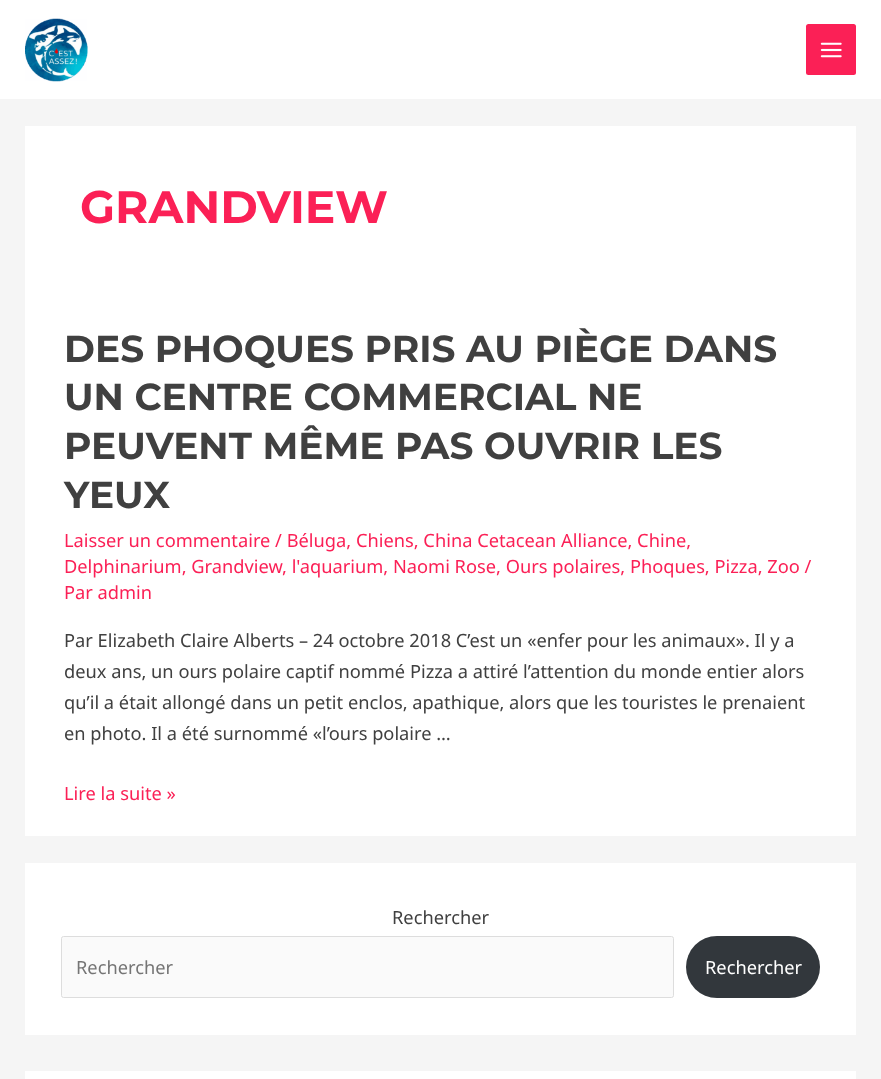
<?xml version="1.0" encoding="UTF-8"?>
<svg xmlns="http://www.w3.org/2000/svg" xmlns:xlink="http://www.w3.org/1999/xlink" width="881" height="1079">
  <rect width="100%" height="100%" fill="#f5f5f5" />
  <rect width="881" height="99" fill="#ffffff" />
  <image x="25" y="18" width="63" height="64" xlink:href="image1.png" />
  <rect x="806" y="24" width="50" height="51" rx="2.5" fill="#fb2056" />
  <image x="820" y="42" width="22" height="16" xlink:href="image2.png" />
  <rect x="25" y="126" width="831" height="710" fill="#ffffff" />
  <rect x="25" y="863" width="831" height="172" fill="#ffffff" />
  <rect x="61.5" y="936.5" width="612" height="61" rx="2" fill="#fafafa" stroke="#dddddd" />
  <rect x="686" y="936" width="134" height="62" rx="31" fill="#32373c" />
  <rect x="25" y="1071" width="831" height="8" fill="#ffffff" />
  <text x="80" y="223" style="font-family: Montserrat; font-size: 45.5px; font-weight: 100; fill: #fb2056">GRANDVIEW</text>
  <text x="64" y="362" style="font-family: Montserrat; font-size: 37.5px; font-weight: 100; fill: #404040">DES PHOQUES PRIS AU PIÈGE DANS</text>
  <text x="64" y="410" style="font-family: Montserrat; font-size: 37.5px; font-weight: 100; fill: #404040">UN CENTRE COMMERCIAL NE</text>
  <text x="64" y="459" style="font-family: Montserrat; font-size: 37.5px; font-weight: 100; fill: #404040">PEUVENT MÊME PAS OUVRIR LES</text>
  <text x="64" y="508" style="font-family: Montserrat; font-size: 37.5px; font-weight: 100; fill: #404040">YEUX</text>
  <text x="64" y="547" style="font-family: Noto Sans; font-size: 18.25px; fill: #fb2056">Laisser un commentaire / Béluga, Chiens, China Cetacean Alliance, Chine,</text>
  <text x="64" y="573" style="font-family: Noto Sans; font-size: 18.25px; fill: #fb2056">Delphinarium, Grandview</text>
  <text x="282" y="573" style="font-family: Noto Sans; font-size: 18.25px; fill: #fb2056">, l'aquarium, Naomi Rose, Ours polaires, Phoques, Pizza, Zoo /</text>
  <text x="64" y="599" style="font-family: Noto Sans; font-size: 18.25px; fill: #fb2056">Par admin</text>
  <text x="64" y="647" style="font-family: Noto Sans; font-size: 18.25px; fill: #404040">Par Elizabeth Claire Alberts – 24 octobre 2018 C’est un «enfer pour les animaux». Il y a</text>
  <text x="64" y="678" style="font-family: Noto Sans; font-size: 18.25px; fill: #404040">deux ans, un ours polaire captif nommé Pizza a attiré l’attention du monde entier alors</text>
  <text x="64" y="709" style="font-family: Noto Sans; font-size: 18.25px; fill: #404040">qu’il a était allongé dans un petit enclos, apathique, alors que les touristes le prenaient</text>
  <text x="64" y="740" style="font-family: Noto Sans; font-size: 18.25px; fill: #404040">en photo. Il a été surnommé «l’ours polaire …</text>
  <text x="64" y="800" style="font-family: Noto Sans; font-size: 18.25px; fill: #fb2056">Lire la suite »</text>
  <text x="392" y="924" style="font-family: Noto Sans; font-size: 18.25px; fill: #404040">Rechercher</text>
  <text x="76" y="974" style="font-family: Noto Sans; font-size: 18.25px; fill: #757575">Rechercher</text>
  <text x="705" y="974" style="font-family: Noto Sans; font-size: 18.25px; fill: #ffffff">Rechercher</text>
</svg>
